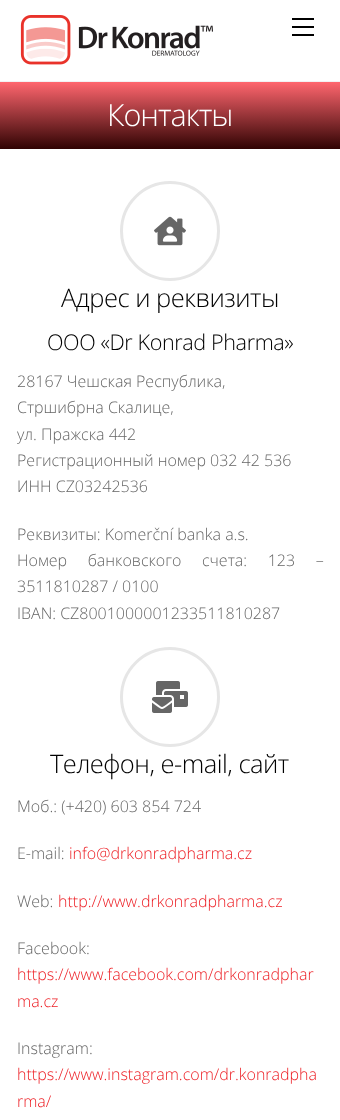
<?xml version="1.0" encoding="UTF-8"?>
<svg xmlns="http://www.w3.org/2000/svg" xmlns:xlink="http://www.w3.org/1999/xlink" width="340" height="1120">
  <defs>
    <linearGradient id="g1" gradientUnits="userSpaceOnUse" x1="170" y1="82" x2="170" y2="149"><stop offset="0" stop-color="#ff666e" /><stop offset="1" stop-color="#300303" /></linearGradient>
  </defs>
  <rect width="100%" height="100%" fill="#ffffff" />
  <rect y="81" width="340" height="1" fill="#f2f2f2" />
  <image x="20" y="15" width="193" height="50" xlink:href="image1.png" />
  <rect x="292" y="34" width="22" height="2" fill="#000000" />
  <rect x="292" y="18" width="22" height="2" fill="#000000" />
  <rect x="292" y="26" width="22" height="2" fill="#000000" />
  <rect y="82" width="340" height="67" fill="url(#g1)" />
  <circle cx="170" cy="231" r="48.5" fill="none" stroke="#e6e6e6" stroke-width="3" />
  <path d="M 121.5 231 c 0 -27 21.5 -48.5 48.5 -48.5 c 27 0 48.5 21.5 48.5 48.5 c 0 27 -21.5 48.5 -48.5 48.5 c -27 0 -48.5 -21.5 -48.5 -48.5 z" fill="none" stroke="#de5d5d" stroke-width="3" stroke-dasharray="0 10000" />
  <image x="154" y="216" width="32" height="30" xlink:href="image2.png" />
  <circle cx="170" cy="697" r="48.5" fill="none" stroke="#e6e6e6" stroke-width="3" />
  <path d="M 121.5 697 c 0 -27 21.5 -48.5 48.5 -48.5 c 27 0 48.5 21.5 48.5 48.5 c 0 27 -21.5 48.5 -48.5 48.5 c -27 0 -48.5 -21.5 -48.5 -48.5 z" fill="none" stroke="#de5d5d" stroke-width="3" stroke-dasharray="0 10000" />
  <image x="152" y="681" width="36" height="32" xlink:href="image3.png" />
  <text x="107" y="126" style="font-family: Open Sans; font-size: 30.5px; font-weight: 300; letter-spacing: -1px; fill: #ffffff">Контакты</text>
  <text x="61" y="307" style="font-family: Open Sans; font-size: 25.5px; font-weight: 300; letter-spacing: -0.5px; fill: #000000">Адрес и реквизиты</text>
  <text x="47" y="350" style="font-family: Open Sans; font-size: 21.6px; font-weight: 300; letter-spacing: -0.4px; fill: #000000">ООО «Dr Konrad Pharma»</text>
  <text x="17" y="387" style="font-family: Open Sans; font-size: 16px; font-weight: 300; fill: #666666">28167 Чешская Республика,</text>
  <text x="17" y="413" style="font-family: Open Sans; font-size: 16px; font-weight: 300; fill: #666666">Стршибрна Скалице,</text>
  <text x="17" y="440" style="font-family: Open Sans; font-size: 16px; font-weight: 300; fill: #666666">ул. Пражска 442</text>
  <text x="17" y="466" style="font-family: Open Sans; font-size: 16px; font-weight: 300; fill: #666666">Регистрационный номер 032 42 536</text>
  <text x="17" y="492" style="font-family: Open Sans; font-size: 16px; font-weight: 300; fill: #666666">ИНН CZ03242536</text>
  <text x="17" y="540" style="font-family: Open Sans; font-size: 16px; font-weight: 300; fill: #666666">Реквизиты: Komerční banka a.s.</text>
  <text x="17" y="566" word-spacing="16.5" style="font-family: Open Sans; font-size: 16px; font-weight: 300; fill: #666666">Номер банковского счета: 123 –</text>
  <text x="17" y="592" style="font-family: Open Sans; font-size: 16px; font-weight: 300; fill: #666666">3511810287 / 0100</text>
  <text x="17" y="619" style="font-family: Open Sans; font-size: 16px; font-weight: 300; fill: #666666">IBAN: CZ8001000001233511810287</text>
  <text x="50" y="773" style="font-family: Open Sans; font-size: 25.5px; font-weight: 300; letter-spacing: -0.5px; fill: #000000">Телефон, e-mail, сайт</text>
  <text x="17" y="812" style="font-family: Open Sans; font-size: 16px; font-weight: 300; fill: #666666">Моб.: (+420) 603 854 724</text>
  <text x="17" y="859" style="font-family: Open Sans; font-size: 16px; font-weight: 300; fill: #666666">E-mail:</text>
  <text x="69" y="859" style="font-family: Open Sans; font-size: 16px; font-weight: 300; fill: #ed1e24">info@drkonradpharma.cz</text>
  <text x="17" y="907" style="font-family: Open Sans; font-size: 16px; font-weight: 300; fill: #666666">Web:</text>
  <text x="58" y="907" style="font-family: Open Sans; font-size: 16px; font-weight: 300; fill: #ed1e24">http://www.drkonradpharma.cz</text>
  <text x="17" y="954" style="font-family: Open Sans; font-size: 16px; font-weight: 300; fill: #666666">Facebook:</text>
  <text x="17" y="980" style="font-family: Open Sans; font-size: 16px; font-weight: 300; fill: #ed1e24">https://www.facebook.com/drkonradphar</text>
  <text x="17" y="1007" style="font-family: Open Sans; font-size: 16px; font-weight: 300; fill: #ed1e24">ma.cz</text>
  <text x="17" y="1054" style="font-family: Open Sans; font-size: 16px; font-weight: 300; fill: #666666">Instagram:</text>
  <text x="17" y="1080" style="font-family: Open Sans; font-size: 16px; font-weight: 300; fill: #ed1e24">https://www.instagram.com/dr.konradpha</text>
  <text x="17" y="1107" style="font-family: Open Sans; font-size: 16px; font-weight: 300; fill: #ed1e24">rma/</text>
</svg>
